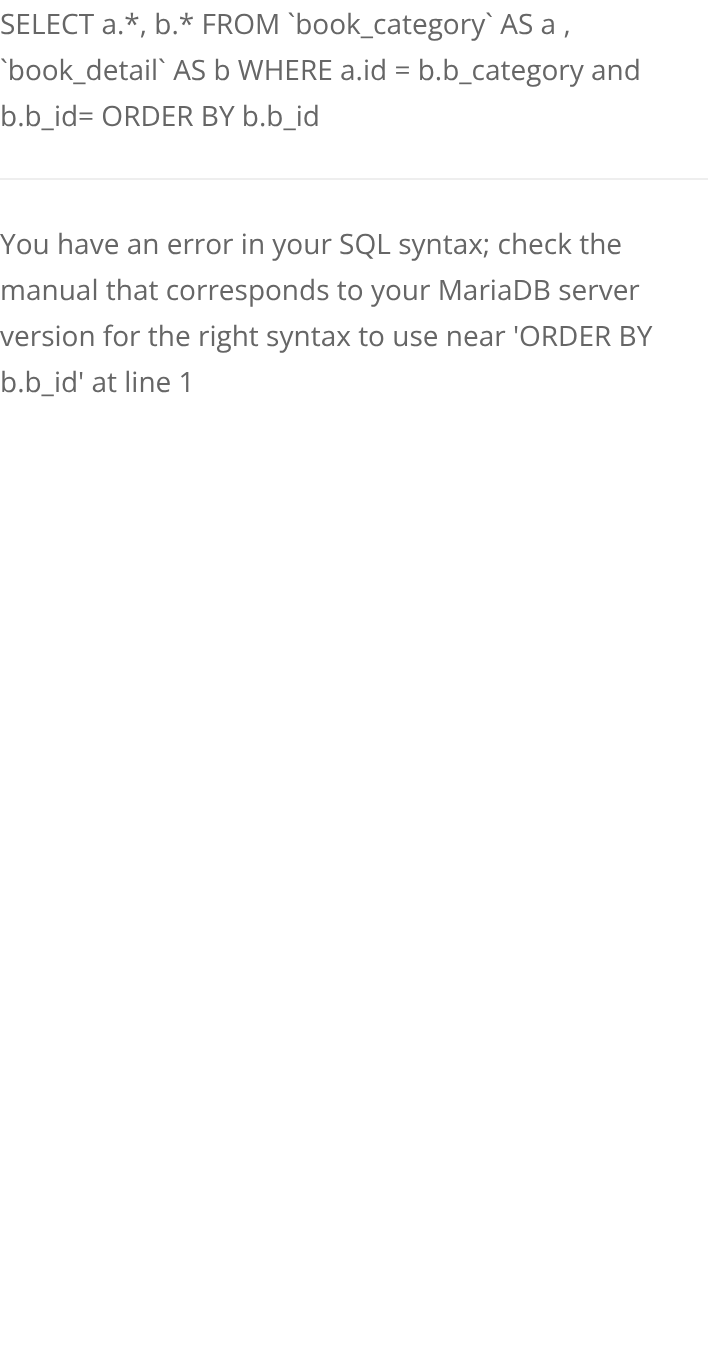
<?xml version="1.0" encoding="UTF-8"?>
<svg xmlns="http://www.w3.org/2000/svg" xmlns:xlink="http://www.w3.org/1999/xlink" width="708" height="1355">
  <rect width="100%" height="100%" fill="#ffffff" />
  <rect y="178" width="708" height="2" fill="#eeeeee" />
  <text x="0" y="34" style="font-family: Open Sans; font-size: 28px; fill: #666666">SELECT a.*, b.* FROM `book_category` AS a ,</text>
  <text x="0" y="80" style="font-family: Open Sans; font-size: 28px; fill: #666666">`book_detail` AS b WHERE a.id = b.b_category and</text>
  <text x="0" y="126" style="font-family: Open Sans; font-size: 28px; fill: #666666">b.b_id= ORDER BY b.b_id</text>
  <text x="0" y="254" style="font-family: Open Sans; font-size: 28px; fill: #666666">You have an error in your SQL syntax; check the</text>
  <text x="0" y="300" style="font-family: Open Sans; font-size: 28px; fill: #666666">manual that corresponds to your MariaDB server</text>
  <text x="0" y="346" style="font-family: Open Sans; font-size: 28px; fill: #666666">version for the right syntax to use near 'ORDER BY</text>
  <text x="0" y="392" style="font-family: Open Sans; font-size: 28px; fill: #666666">b.b_id' at line 1</text>
</svg>
